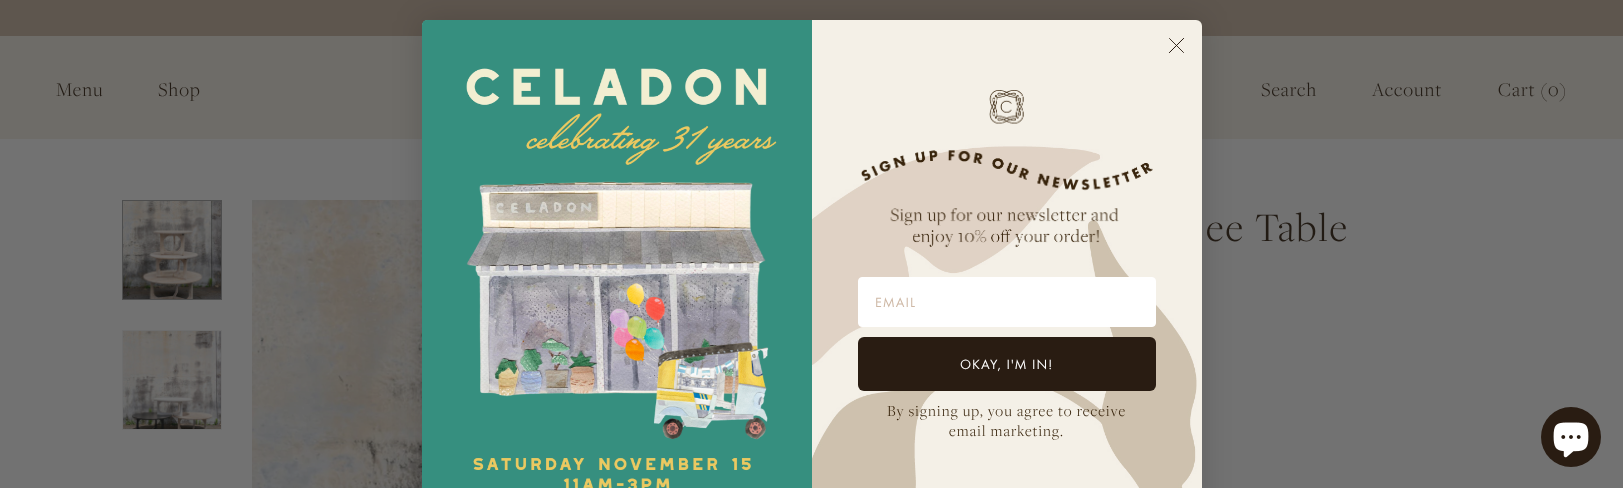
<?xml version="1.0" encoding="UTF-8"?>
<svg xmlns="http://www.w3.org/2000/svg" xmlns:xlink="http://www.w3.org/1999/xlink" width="1623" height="488">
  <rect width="100%" height="100%" fill="#727272" />
  <rect width="1623" height="36" fill="#5e564e" />
  <rect y="36" width="1623" height="103" fill="#6e6c68" />
  <rect x="122.5" y="200.5" width="99" height="99" fill="none" stroke="#4d4d4d" />
  <image x="123" y="201" width="98" height="98" xlink:href="image1.png" />
  <rect x="122.5" y="330.5" width="99" height="99" fill="none" stroke="#6d6d6d" />
  <image x="123" y="331" width="98" height="98" xlink:href="image2.png" />
  <image x="252" y="200" width="170" height="288" xlink:href="image3.png" />
  <rect x="422" y="20" width="780" height="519" rx="6" fill="#000000" fill-opacity="0.15" filter="blur(15px)" />
  <image x="422" y="20" width="780" height="468" xlink:href="image4.png" />
  <path d="M 1169.5 38.5 l 14 14 m -14 0 l 14 -14 z" fill="none" stroke="#291c12" stroke-width="0.9" stroke-linecap="round" stroke-linejoin="round" />
  <image x="422" y="20" width="390" height="468" xlink:href="image5.png" />
  <image x="861" y="90" width="292" height="158" xlink:href="image6.png" />
  <rect x="858.5" y="277.5" width="297" height="49" rx="3.5" fill="#ffffff" stroke="#ffffff" />
  <rect x="858" y="337" width="298" height="54" rx="6" fill="#291c12" />
  <circle cx="1571" cy="437" r="30" fill="#291c12" />
  <image x="1553" y="422" width="36" height="36" xlink:href="image7.png" />
  <text x="56" y="96" style="font-family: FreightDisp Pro; font-size: 20px; font-weight: 300; letter-spacing: 1px; fill: #221b14">Menu</text>
  <text x="158" y="96" style="font-family: FreightDisp Pro; font-size: 20px; font-weight: 300; letter-spacing: 1px; fill: #221b14">Shop</text>
  <text x="1261" y="96" style="font-family: FreightDisp Pro; font-size: 20px; font-weight: 300; letter-spacing: 1px; fill: #221b14">Search</text>
  <text x="1372" y="96" style="font-family: FreightDisp Pro; font-size: 20px; font-weight: 300; letter-spacing: 1px; fill: #221b14">Account</text>
  <text x="1498" y="96" style="font-family: FreightDisp Pro; font-size: 20px; font-weight: 300; letter-spacing: 1px; fill: #221b14">Cart (0)</text>
  <text x="1206" y="241" style="font-family: FreightDisp Pro; font-size: 42px; font-weight: 300; letter-spacing: 2px; fill: #221b14">ee Table</text>
  <text x="875" y="307" style="font-family: Futura PT; font-size: 14px; letter-spacing: 1px; fill: #ceb8a5">EMAIL</text>
  <text x="960" y="369" style="font-family: Futura PT; font-size: 14px; letter-spacing: 1px; fill: #ffffff">OKAY, I'M IN!</text>
  <text x="887" y="416" style="font-family: FreightDisp Pro; font-size: 16px; font-weight: 300; letter-spacing: 1.1px; fill: #37230b">By signing up, you agree to receive</text>
  <text x="949" y="436" style="font-family: FreightDisp Pro; font-size: 16px; font-weight: 300; letter-spacing: 1.1px; fill: #37230b">email marketing.</text>
</svg>
